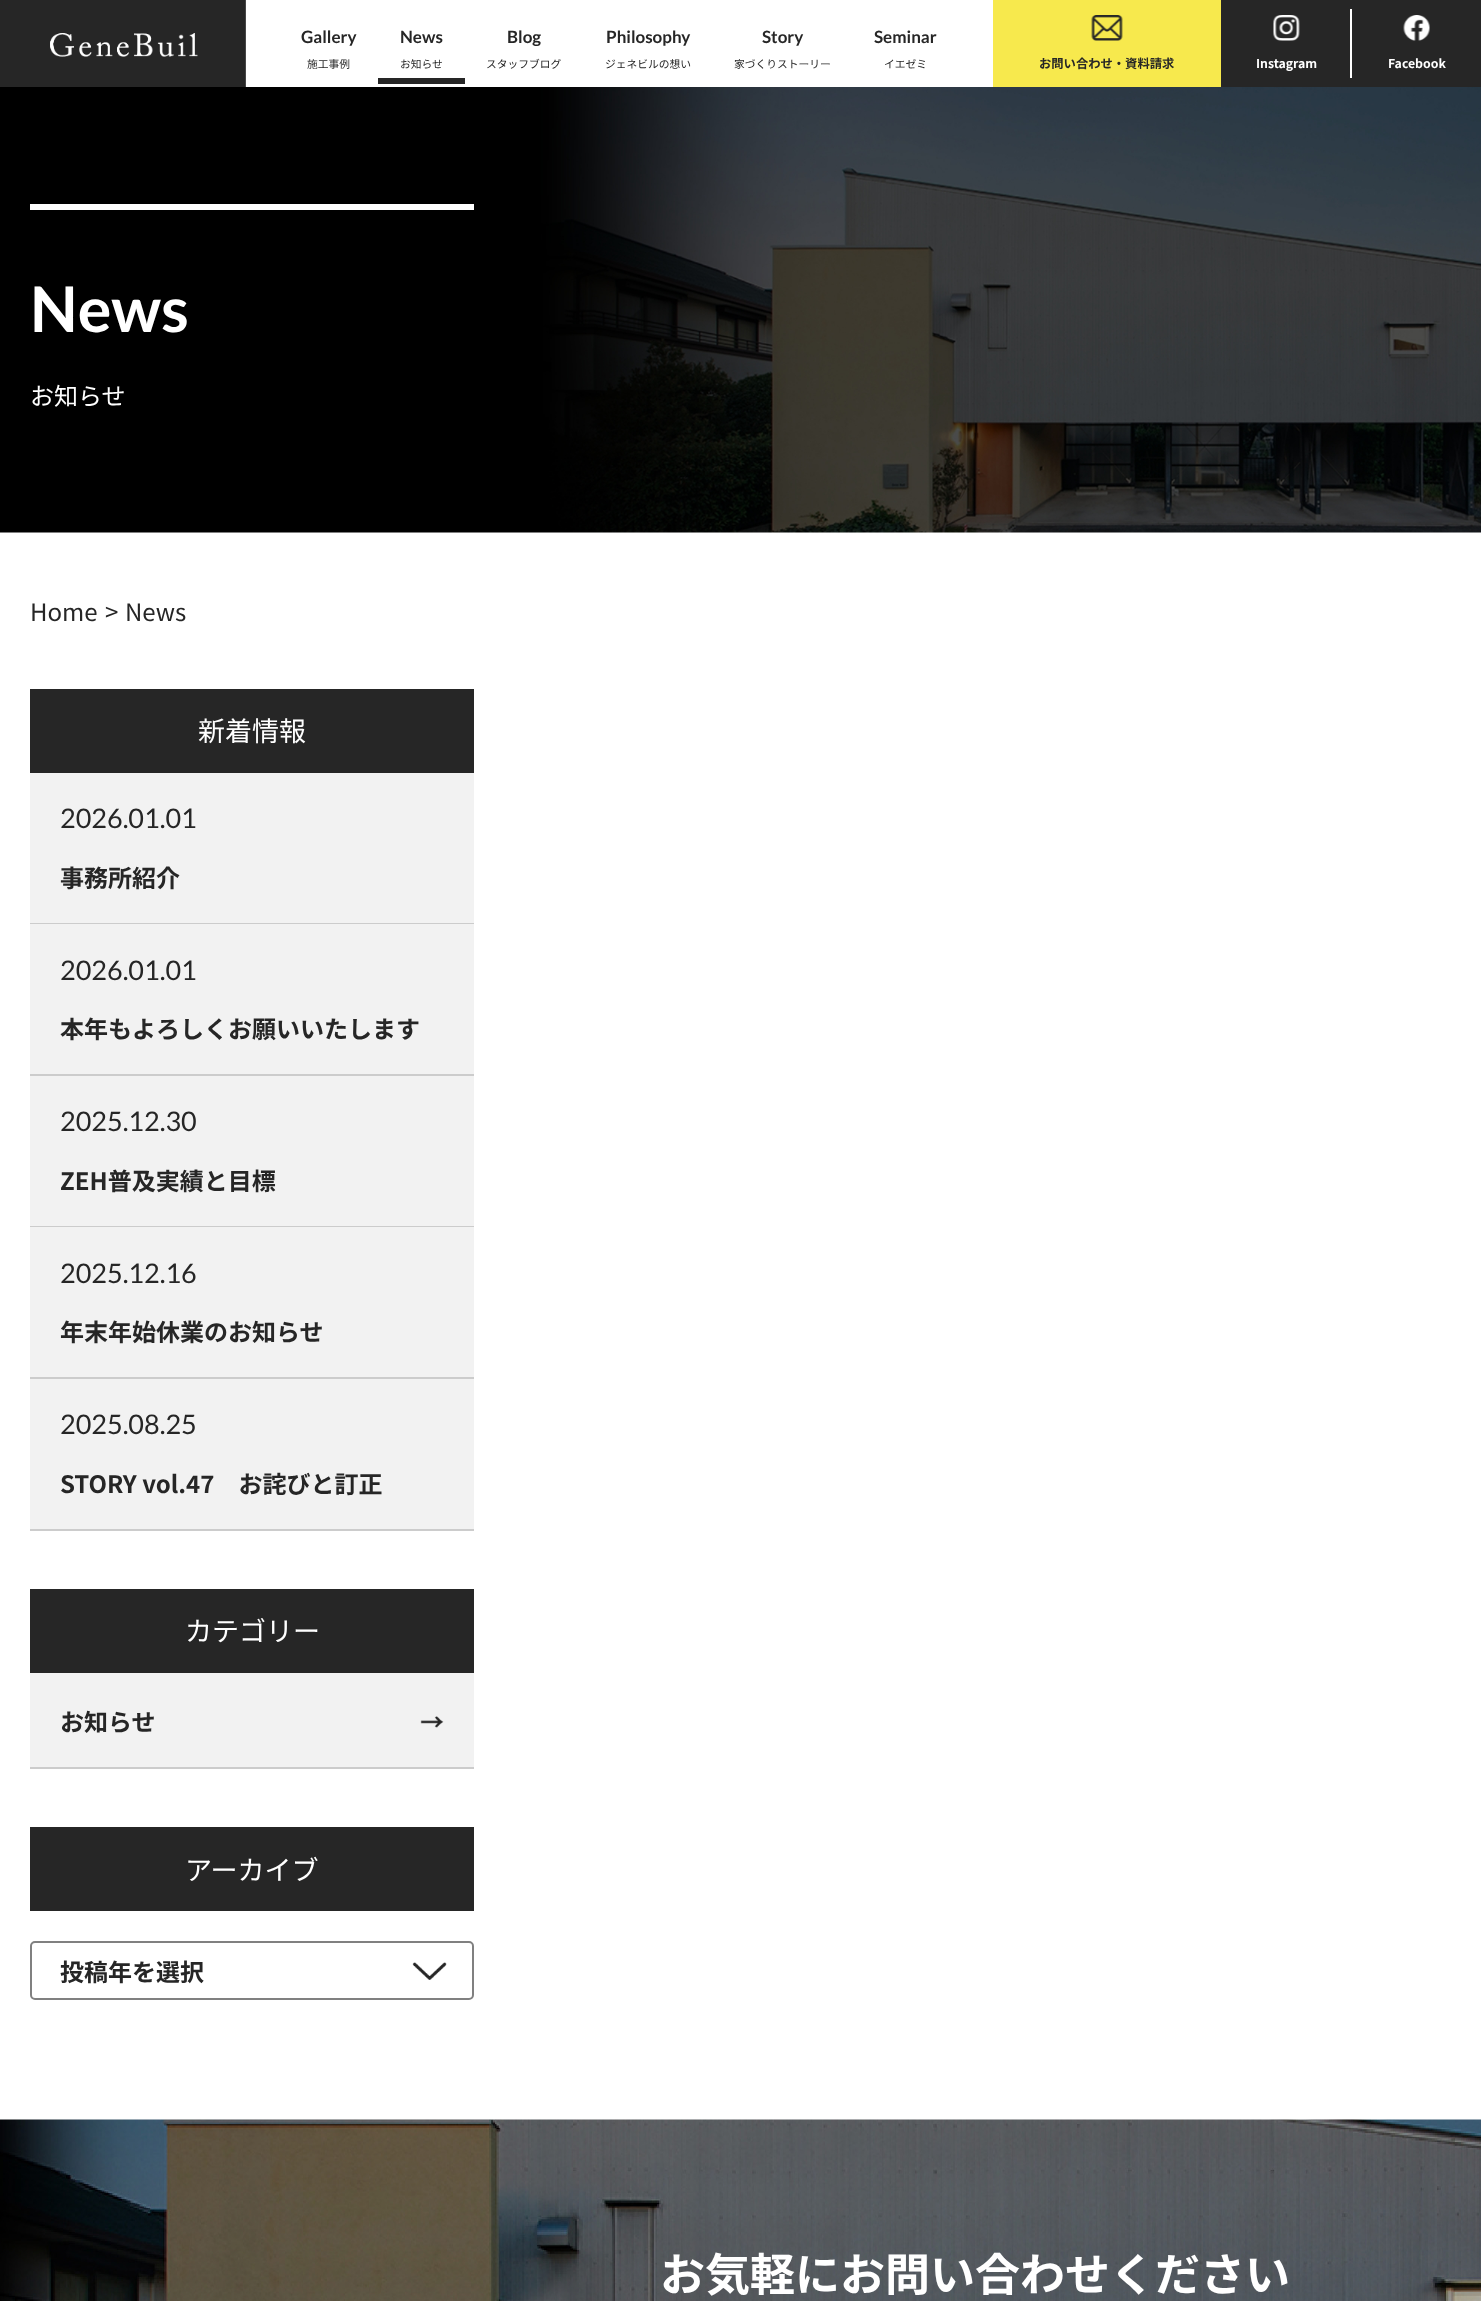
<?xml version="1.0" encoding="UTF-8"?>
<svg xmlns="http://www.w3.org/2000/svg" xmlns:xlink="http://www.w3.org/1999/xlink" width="1481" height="2301">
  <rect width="100%" height="100%" fill="#ffffff" />
  <image x="0" y="0" width="246" height="87" xlink:href="image1.png" />
  <rect x="378" y="78" width="87" height="6" fill="#262626" />
  <rect x="993" width="228" height="87" fill="#f7e94d" />
  <image x="1091" y="15" width="32" height="26" xlink:href="image2.png" />
  <rect x="1221" width="260" height="87" fill="#262626" />
  <image x="1273" y="15" width="27" height="26" xlink:href="image3.png" />
  <rect x="1350" y="9" width="2" height="69" fill="#ffffff" />
  <image x="1403" y="15" width="27" height="26" xlink:href="image4.png" />
  <image x="0" y="87" width="1481" height="446" xlink:href="image5.png" />
  <rect x="30" y="204" width="444" height="6" fill="#ffffff" />
  <rect x="30" y="689" width="444" height="84" fill="#262626" />
  <rect x="30" y="773" width="444" height="150" fill="#f2f2f2" />
  <rect x="30" y="923" width="444" height="1" fill="#cccccc" />
  <rect x="30" y="924" width="444" height="150" fill="#f2f2f2" />
  <rect x="30" y="1074" width="444" height="2" fill="#cccccc" />
  <rect x="30" y="1076" width="444" height="150" fill="#f2f2f2" />
  <rect x="30" y="1226" width="444" height="1" fill="#cccccc" />
  <rect x="30" y="1227" width="444" height="150" fill="#f2f2f2" />
  <rect x="30" y="1377" width="444" height="2" fill="#cccccc" />
  <rect x="30" y="1379" width="444" height="150" fill="#f2f2f2" />
  <rect x="30" y="1529" width="444" height="2" fill="#cccccc" />
  <rect x="30" y="1589" width="444" height="84" fill="#262626" />
  <rect x="30" y="1673" width="444" height="94" fill="#f2f2f2" />
  <image x="420" y="1716" width="24" height="12" xlink:href="image6.png" />
  <rect x="30" y="1767" width="444" height="2" fill="#cccccc" />
  <rect x="30" y="1827" width="444" height="84" fill="#262626" />
  <image x="412" y="1962" width="35" height="18" xlink:href="image7.png" />
  <rect x="31" y="1942" width="442" height="57" rx="4" fill="none" stroke="#808080" stroke-width="2" />
  <image x="0" y="2119" width="1481" height="182" xlink:href="image8.png" />
  <text x="301" y="43" style="font-family: Lato; font-size: 17px; font-weight: bold; fill: #262626">Gallery</text>
  <text x="307" y="68" style="font-family: Noto Sans JP; font-size: 10.75px; fill: #262626">施工事例</text>
  <text x="400" y="43" style="font-family: Lato; font-size: 17px; font-weight: bold; fill: #262626">News</text>
  <text x="400" y="68" style="font-family: Noto Sans JP; font-size: 10.75px; fill: #262626">お知らせ</text>
  <text x="507" y="43" style="font-family: Lato; font-size: 17px; font-weight: bold; fill: #262626">Blog</text>
  <text x="486" y="68" style="font-family: Noto Sans JP; font-size: 10.75px; fill: #262626">スタッフブログ</text>
  <text x="606" y="43" style="font-family: Lato; font-size: 17px; font-weight: bold; fill: #262626">Philosophy</text>
  <text x="605" y="68" style="font-family: Noto Sans JP; font-size: 10.75px; fill: #262626">ジェネビルの想い</text>
  <text x="762" y="43" style="font-family: Lato; font-size: 17px; font-weight: bold; fill: #262626">Story</text>
  <text x="734" y="68" style="font-family: Noto Sans JP; font-size: 10.75px; fill: #262626">家づくりストーリー</text>
  <text x="874" y="43" style="font-family: Lato; font-size: 17px; font-weight: bold; fill: #262626">Seminar</text>
  <text x="884" y="68" style="font-family: Noto Sans JP; font-size: 10.75px; fill: #262626">イエゼミ</text>
  <text x="1039" y="68" style="font-family: Noto Sans JP; font-size: 12.3px; font-weight: bold; fill: #262626">お問い合わせ・資料請求</text>
  <text x="1256" y="68" style="font-family: Noto Sans JP; font-size: 12.3px; font-weight: bold; fill: #ffffff">Instagram</text>
  <text x="1388" y="68" style="font-family: Noto Sans JP; font-size: 12.3px; font-weight: bold; fill: #ffffff">Facebook</text>
  <text x="30" y="332" style="font-family: Lato; font-size: 63px; font-weight: bold; fill: #ffffff">News</text>
  <text x="30" y="405" style="font-family: Noto Sans JP; font-size: 24px; fill: #ffffff">お知らせ</text>
  <text x="30" y="621" style="font-family: Noto Sans JP; font-size: 24px; fill: #262626">Home</text>
  <text x="105" y="621" style="font-family: Noto Sans JP; font-size: 24px; fill: #262626">&gt;</text>
  <text x="125" y="621" style="font-family: Noto Sans JP; font-size: 24px; fill: #262626">News</text>
  <text x="198" y="741" style="font-family: Noto Sans JP; font-size: 27px; fill: #ffffff">新着情報</text>
  <text x="60" y="828" style="font-family: Lato; font-size: 27px; fill: #262626">2026.01.01</text>
  <text x="60" y="887" style="font-family: Noto Sans JP; font-size: 24px; font-weight: bold; fill: #262626">事務所紹介</text>
  <text x="60" y="980" style="font-family: Lato; font-size: 27px; fill: #262626">2026.01.01</text>
  <text x="60" y="1038" style="font-family: Noto Sans JP; font-size: 24px; font-weight: bold; fill: #262626">本年もよろしくお願いいたします</text>
  <text x="60" y="1131" style="font-family: Lato; font-size: 27px; fill: #262626">2025.12.30</text>
  <text x="60" y="1190" style="font-family: Noto Sans JP; font-size: 24px; font-weight: bold; fill: #262626">ZEH普及実績と目標</text>
  <text x="60" y="1283" style="font-family: Lato; font-size: 27px; fill: #262626">2025.12.16</text>
  <text x="60" y="1341" style="font-family: Noto Sans JP; font-size: 24px; font-weight: bold; fill: #262626">年末年始休業のお知らせ</text>
  <text x="60" y="1434" style="font-family: Lato; font-size: 27px; fill: #262626">2025.08.25</text>
  <text x="60" y="1493" style="font-family: Noto Sans JP; font-size: 24px; font-weight: bold; fill: #262626">STORY vol.47　お詫びと訂正</text>
  <text x="185" y="1641" style="font-family: Noto Sans JP; font-size: 27px; fill: #ffffff">カテゴリー</text>
  <text x="60" y="1731" style="font-family: Noto Sans JP; font-size: 24px; font-weight: bold; fill: #262626">お知らせ</text>
  <text x="185" y="1880" style="font-family: Noto Sans JP; font-size: 27px; fill: #ffffff">アーカイブ</text>
  <text x="60" y="1981" style="font-family: Noto Sans JP; font-size: 24px; font-weight: bold; fill: #262626">投稿年を選択</text>
  <text x="660" y="2291" style="font-family: Noto Sans JP; font-size: 45px; font-weight: bold; fill: #ffffff">お気軽にお問い合わせください</text>
</svg>
